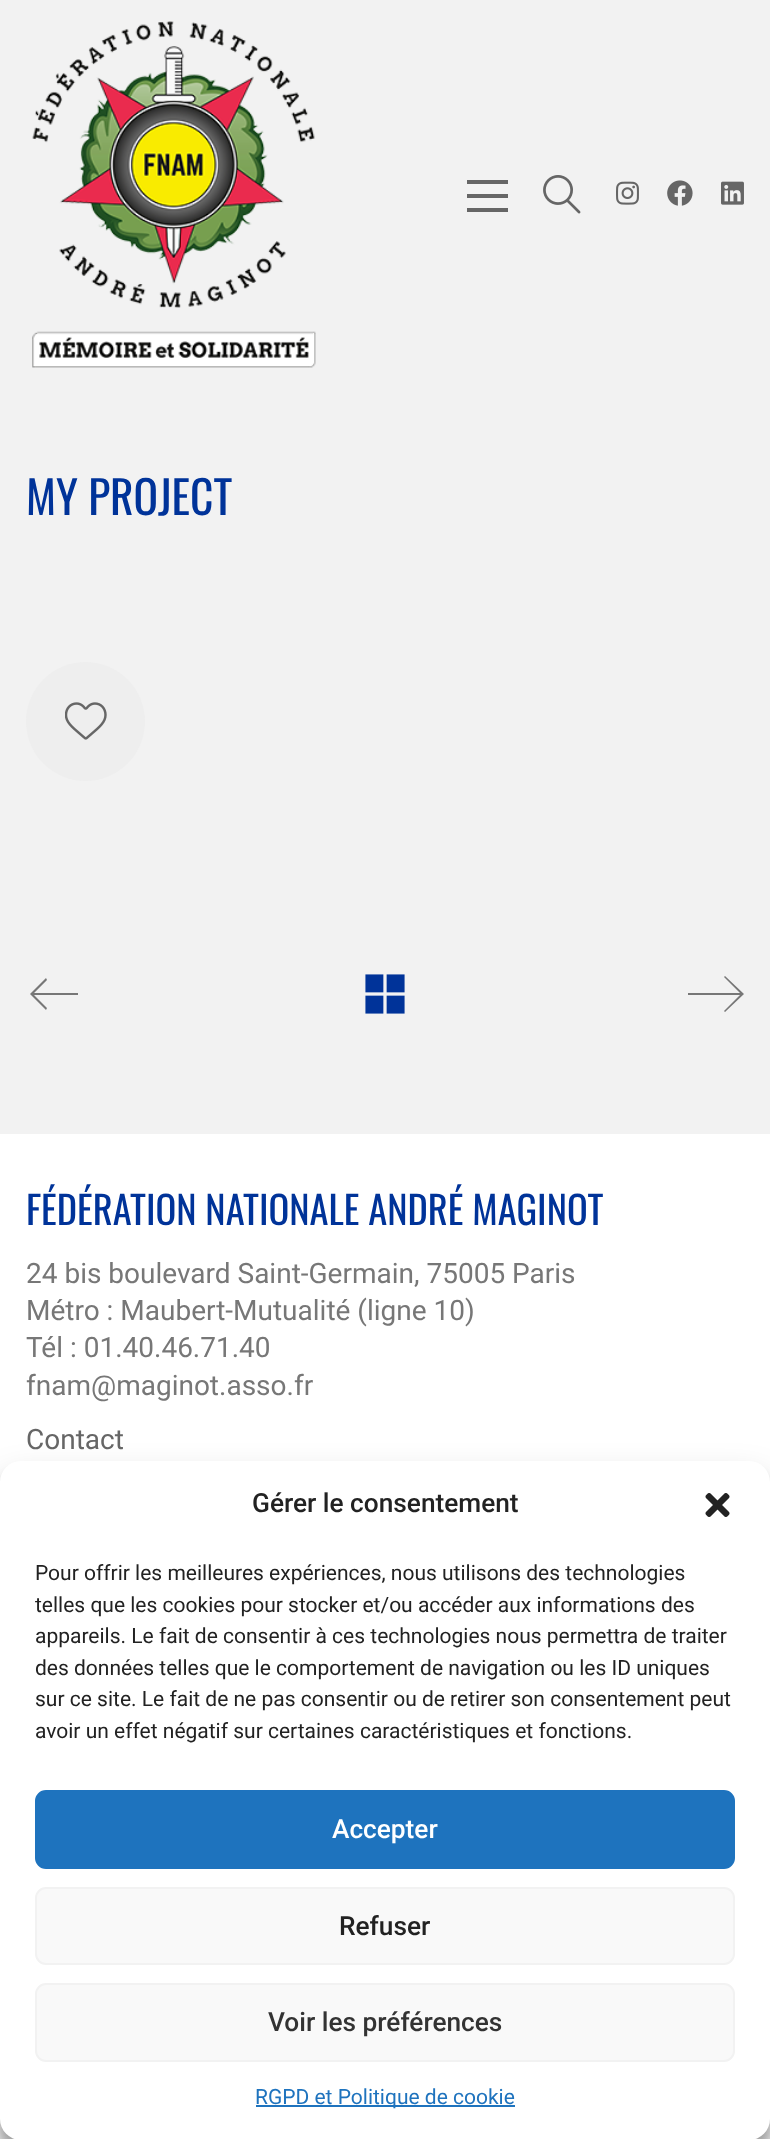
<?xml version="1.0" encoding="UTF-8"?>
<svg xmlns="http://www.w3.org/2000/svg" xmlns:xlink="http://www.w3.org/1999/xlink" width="770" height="2139">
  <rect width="100%" height="100%" fill="#f2f2f2" />
  <image x="32" y="21" width="284" height="347" xlink:href="image1.png" />
  <rect x="467" y="180" width="41" height="4" fill="#666666" />
  <rect x="467" y="194" width="41" height="4" fill="#666666" />
  <rect x="467" y="208" width="41" height="4" fill="#666666" />
  <image x="543" y="175" width="38" height="39" xlink:href="image2.png" />
  <image x="616" y="181" width="23" height="24" xlink:href="image3.png" />
  <image x="667" y="180" width="26" height="26" xlink:href="image4.png" />
  <image x="721" y="181" width="23" height="24" xlink:href="image5.png" />
  <circle cx="85.5" cy="721.5" r="59.5" fill="#eeeeee" />
  <image x="65" y="702" width="42" height="38" xlink:href="image6.png" />
  <path d="M 78 993 h -44 l 13 -13 l -1 -2 l -16 16 l 16 16 l 1 -2 l -13 -13 h 44 z" fill="#777777" />
  <image x="365" y="974" width="40" height="40" xlink:href="image7.png" />
  <path d="M 725 976 l -1 1 l 16 16 h -52 v 2 h 52 l -16 16 l 1 1 l 19 -18 z" fill="#777777" />
  <rect y="1134" width="770" height="348" fill="#ffffff" />
  <rect y="1472" width="770" height="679" rx="21" fill="#000000" fill-opacity="0.23" filter="blur(5px)" />
  <rect y="1479" width="770" height="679" rx="21" fill="#000000" fill-opacity="0.19" filter="blur(17.5px)" />
  <rect y="1461" width="770" height="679" rx="21" fill="#ffffff" />
  <image x="705" y="1493" width="25" height="24" xlink:href="image8.png" />
  <rect x="36" y="1791" width="698" height="77" rx="10" fill="#1e73be" stroke="#1e73be" stroke-width="2" />
  <rect x="36" y="1888" width="698" height="76" rx="10" fill="#f9f9f9" stroke="#f2f2f2" stroke-width="2" />
  <rect x="36" y="1984" width="698" height="77" rx="10" fill="#f9f9f9" stroke="#f2f2f2" stroke-width="2" />
  <rect x="256" y="2105" width="259" height="2" fill="#1e73be" />
  <text x="26" y="515" style="font-family: Oswald; font-size: 45.5px; fill: #003399">MY PROJECT</text>
  <text x="26" y="1225" style="font-family: Oswald; font-size: 38.5px; fill: #003399">FÉDÉRATION NATIONALE ANDRÉ MAGINOT</text>
  <text x="26" y="1283" style="font-family: Roboto; font-size: 28px; fill: #777777">24 bis boulevard Saint-Germain, 75005 Paris</text>
  <text x="26" y="1320" style="font-family: Roboto; font-size: 28px; fill: #777777">Métro : Maubert-Mutualité (ligne 10)</text>
  <text x="26" y="1357" style="font-family: Roboto; font-size: 28px; fill: #777777">Tél : 01.40.46.71.40</text>
  <text x="26" y="1395" style="font-family: Roboto; font-size: 28px; fill: #777777">fnam@maginot.asso.fr</text>
  <text x="26" y="1449" style="font-family: Roboto; font-size: 28px; fill: #666666">Contact</text>
  <text x="252" y="1512" style="font-family: Roboto; font-size: 26.25px; font-weight: 500; fill: #222222">Gérer le consentement</text>
  <text x="35" y="1580" style="font-family: Roboto; font-size: 21px; fill: #222222">Pour offrir les meilleures expériences, nous utilisons des technologies</text>
  <text x="35" y="1612" style="font-family: Roboto; font-size: 21px; fill: #222222">telles que les cookies pour stocker et/ou accéder aux informations des</text>
  <text x="35" y="1643" style="font-family: Roboto; font-size: 21px; fill: #222222">appareils. Le fait de consentir à ces technologies nous permettra de traiter</text>
  <text x="35" y="1675" style="font-family: Roboto; font-size: 21px; fill: #222222">des données telles que le comportement de navigation ou les ID uniques</text>
  <text x="35" y="1706" style="font-family: Roboto; font-size: 21px; fill: #222222">sur ce site. Le fait de ne pas consentir ou de retirer son consentement peut</text>
  <text x="35" y="1738" style="font-family: Roboto; font-size: 21px; fill: #222222">avoir un effet négatif sur certaines caractéristiques et fonctions.</text>
  <text x="332" y="1838" style="font-family: Roboto; font-size: 26.25px; font-weight: 500; fill: #ffffff">Accepter</text>
  <text x="339" y="1935" style="font-family: Roboto; font-size: 26.25px; font-weight: 500; fill: #222222">Refuser</text>
  <text x="268" y="2031" style="font-family: Roboto; font-size: 26.25px; font-weight: 500; fill: #333333">Voir les préférences</text>
  <text x="255" y="2104" style="font-family: Roboto; font-size: 21px; fill: #1e73be">RGPD et Politique de cookie</text>
</svg>
